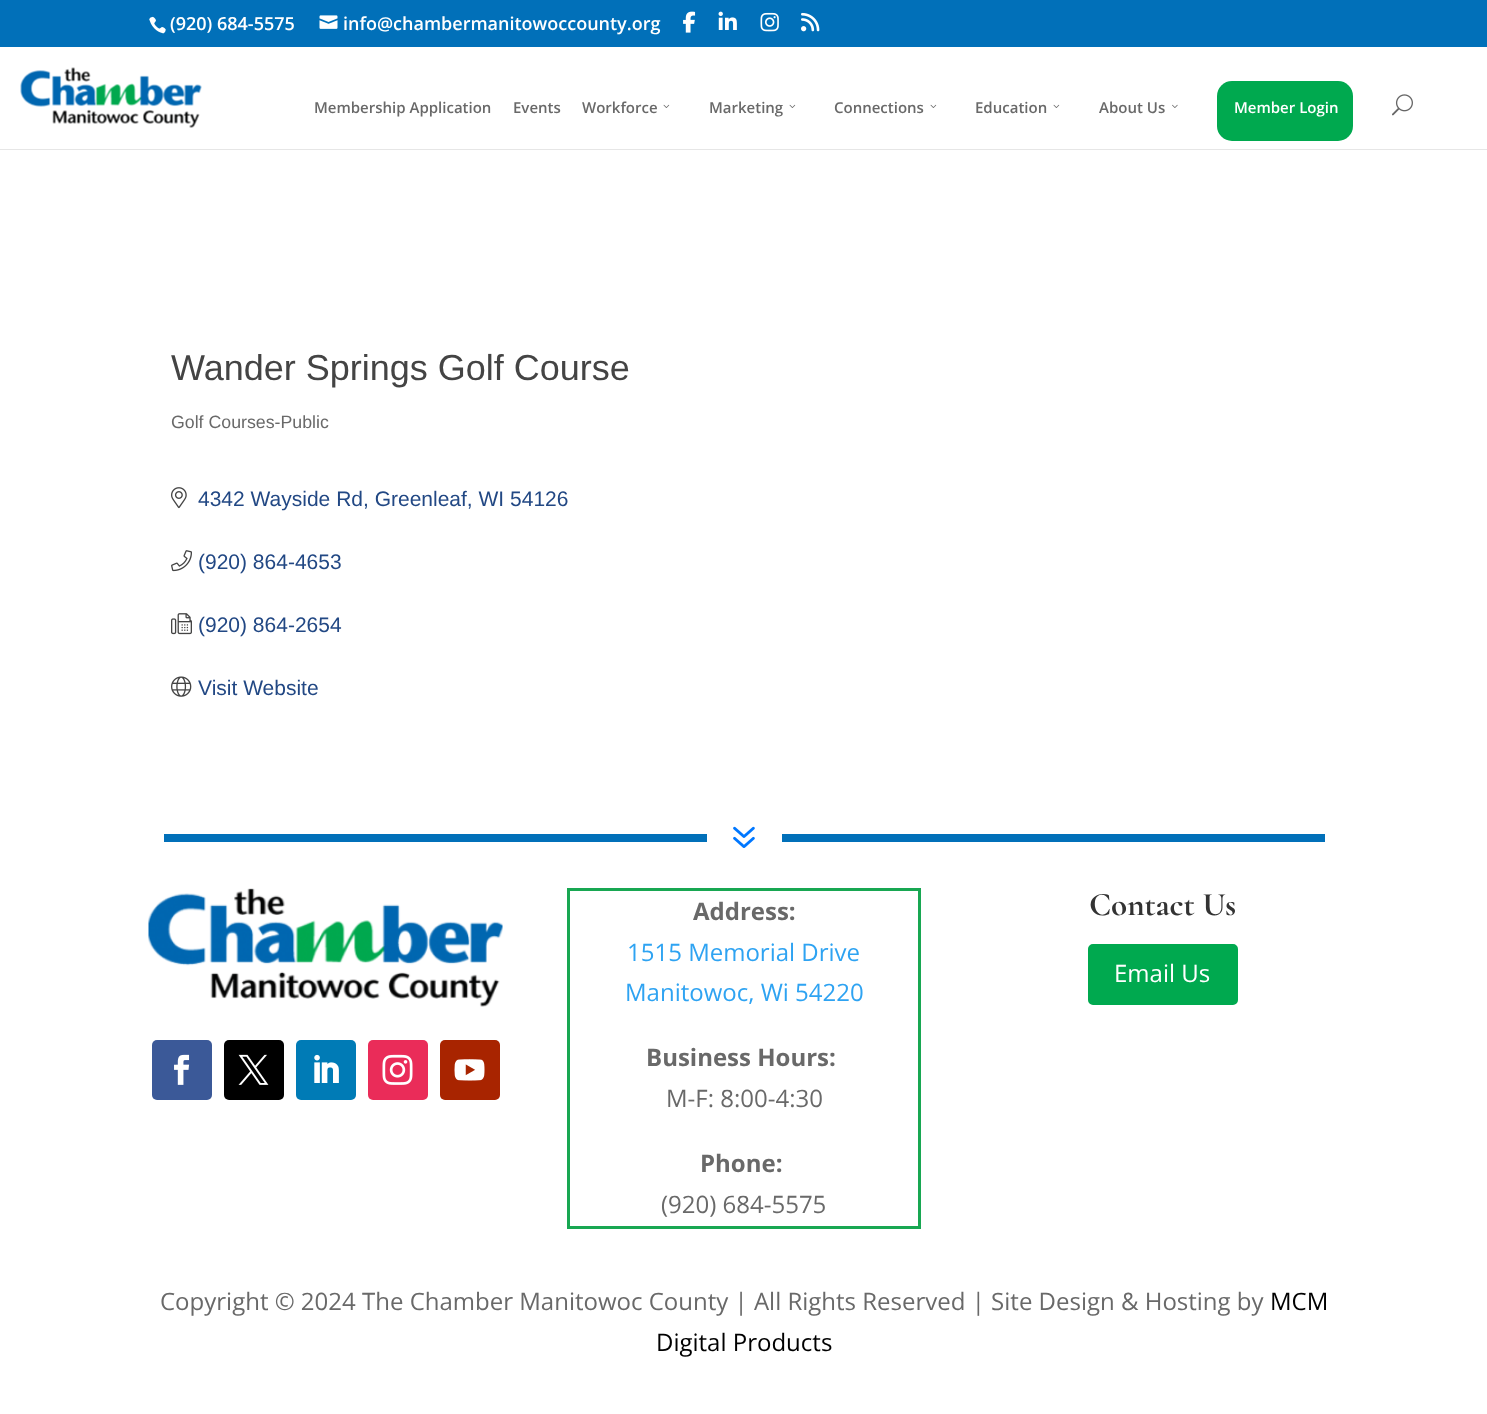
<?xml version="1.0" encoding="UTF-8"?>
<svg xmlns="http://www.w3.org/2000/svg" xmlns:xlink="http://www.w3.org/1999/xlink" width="1487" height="1414">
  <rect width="100%" height="100%" fill="#ffffff" />
  <rect width="1487" height="47" fill="#0170b9" />
  <image x="149" y="16" width="17" height="18" xlink:href="image1.png" />
  <image x="319" y="15" width="19" height="14" xlink:href="image2.png" />
  <image x="683" y="11" width="13" height="22" xlink:href="image3.png" />
  <image x="718" y="11" width="19" height="19" xlink:href="image4.png" />
  <image x="760" y="12" width="19" height="20" xlink:href="image5.png" />
  <image x="801" y="12" width="19" height="20" xlink:href="image6.png" />
  <rect y="149" width="1487" height="1" fill="#e6e6e6" />
  <image x="20" y="67" width="182" height="61" xlink:href="image7.png" />
  <image x="663" y="104" width="7" height="4" xlink:href="image8.png" />
  <image x="789" y="104" width="7" height="4" xlink:href="image8.png" />
  <image x="930" y="104" width="7" height="4" xlink:href="image8.png" />
  <image x="1053" y="104" width="7" height="4" xlink:href="image8.png" />
  <image x="1172" y="104" width="6" height="4" xlink:href="image9.png" />
  <rect x="1217" y="81" width="136" height="60" rx="15" fill="#00a94f" />
  <image x="1392" y="94" width="21" height="22" xlink:href="image10.png" />
  <image x="171" y="487" width="16" height="22" xlink:href="image11.png" />
  <image x="171" y="550" width="21" height="22" xlink:href="image12.png" />
  <image x="171" y="613" width="21" height="22" xlink:href="image13.png" />
  <image x="171" y="676" width="21" height="21" xlink:href="image14.png" />
  <rect x="164" y="834" width="543" height="8" fill="#0170b9" />
  <image x="733" y="826" width="22" height="22" xlink:href="image15.png" />
  <rect x="782" y="834" width="543" height="8" fill="#0170b9" />
  <image x="148" y="888" width="355" height="119" xlink:href="image16.png" />
  <rect x="152" y="1040" width="60" height="60" rx="5" fill="#3b5998" />
  <image x="174" y="1054" width="16" height="31" xlink:href="image17.png" />
  <rect x="224" y="1040" width="60" height="60" rx="5" fill="#000000" />
  <image x="238" y="1054" width="31" height="31" xlink:href="image18.png" />
  <rect x="296" y="1040" width="60" height="60" rx="5" fill="#007bb6" />
  <image x="314" y="1054" width="25" height="29" xlink:href="image19.png" />
  <rect x="368" y="1040" width="60" height="60" rx="5" fill="#ea2c59" />
  <image x="382" y="1054" width="31" height="31" xlink:href="image20.png" />
  <rect x="440" y="1040" width="60" height="60" rx="5" fill="#a82400" />
  <image x="454" y="1059" width="31" height="22" xlink:href="image21.png" />
  <rect x="568.5" y="889.5" width="351" height="338" fill="none" stroke="#18a752" stroke-width="3" />
  <rect x="1089.5" y="945.5" width="147" height="58" rx="3.5" fill="#00a94f" stroke="#00a94f" stroke-width="3" />
  <text x="170" y="30" style="font-family: Open Sans; font-size: 18px; font-weight: 600; fill: #ffffff">(920) 684-5575</text>
  <text x="343" y="30" style="font-family: Open Sans; font-size: 18px; font-weight: 600; fill: #ffffff">info@chambermanitowoccounty.org</text>
  <text x="314" y="113" style="font-family: Open Sans; font-size: 15px; font-weight: 600; fill: #696969">Membership Application</text>
  <text x="513" y="113" style="font-family: Open Sans; font-size: 15px; font-weight: 600; fill: #696969">Events</text>
  <text x="582" y="113" style="font-family: Open Sans; font-size: 15px; font-weight: 600; fill: #696969">Workforce</text>
  <text x="709" y="113" style="font-family: Open Sans; font-size: 15px; font-weight: 600; fill: #696969">Marketing</text>
  <text x="834" y="113" style="font-family: Open Sans; font-size: 15px; font-weight: 600; fill: #696969">Connections</text>
  <text x="975" y="113" style="font-family: Open Sans; font-size: 15px; font-weight: 600; fill: #696969">Education</text>
  <text x="1099" y="113" style="font-family: Open Sans; font-size: 15px; font-weight: 600; fill: #696969">About Us</text>
  <text x="1234" y="113" style="font-family: Open Sans; font-size: 15px; font-weight: 600; fill: #ffffff">Member Login</text>
  <text x="171" y="380" style="font-family: Liberation Sans; font-size: 36px; fill: #444444">Wander Springs Golf Course</text>
  <text x="171" y="428" style="font-family: Liberation Sans; font-size: 17.75px; fill: #696969">Golf Courses-Public</text>
  <text x="198" y="506" style="font-family: Liberation Sans; font-size: 21px; fill: #224884">4342 Wayside Rd, Greenleaf, WI 54126</text>
  <text x="198" y="569" style="font-family: Liberation Sans; font-size: 21px; fill: #224884">(920) 864-4653</text>
  <text x="198" y="632" style="font-family: Liberation Sans; font-size: 21px; fill: #224884">(920) 864-2654</text>
  <text x="198" y="695" style="font-family: Liberation Sans; font-size: 21px; fill: #224884">Visit Website</text>
  <text x="693" y="920" style="font-family: Open Sans; font-size: 24px; font-weight: bold; fill: #696969">Address:</text>
  <text x="627" y="961" style="font-family: Open Sans; font-size: 24px; fill: #2ea3f2">1515 Memorial Drive</text>
  <text x="625" y="1001" style="font-family: Open Sans; font-size: 24px; fill: #2ea3f2">Manitowoc, Wi 54220</text>
  <text x="646" y="1066" style="font-family: Open Sans; font-size: 24px; font-weight: bold; fill: #696969">Business Hours:</text>
  <text x="666" y="1107" style="font-family: Open Sans; font-size: 24px; fill: #696969">M-F: 8:00-4:30</text>
  <text x="700" y="1172" style="font-family: Open Sans; font-size: 24px; font-weight: bold; fill: #696969">Phone:</text>
  <text x="661" y="1213" style="font-family: Open Sans; font-size: 24px; fill: #696969">(920) 684-5575</text>
  <text x="1089" y="915" style="font-family: Cormorant; font-size: 33px; font-weight: 300; fill: #333333">Contact Us</text>
  <text x="1114" y="982" style="font-family: Open Sans; font-size: 24px; fill: #ffffff">Email Us</text>
  <text x="160" y="1310" style="font-family: Open Sans; font-size: 24px; fill: #696969">Copyright © 2024 The Chamber Manitowoc County | All Rights Reserved | Site Design &amp; Hosting by</text>
  <text x="1270" y="1310" style="font-family: Open Sans; font-size: 24px; fill: #000000">MCM</text>
  <text x="656" y="1351" style="font-family: Open Sans; font-size: 24px; fill: #000000">Digital Products</text>
</svg>
